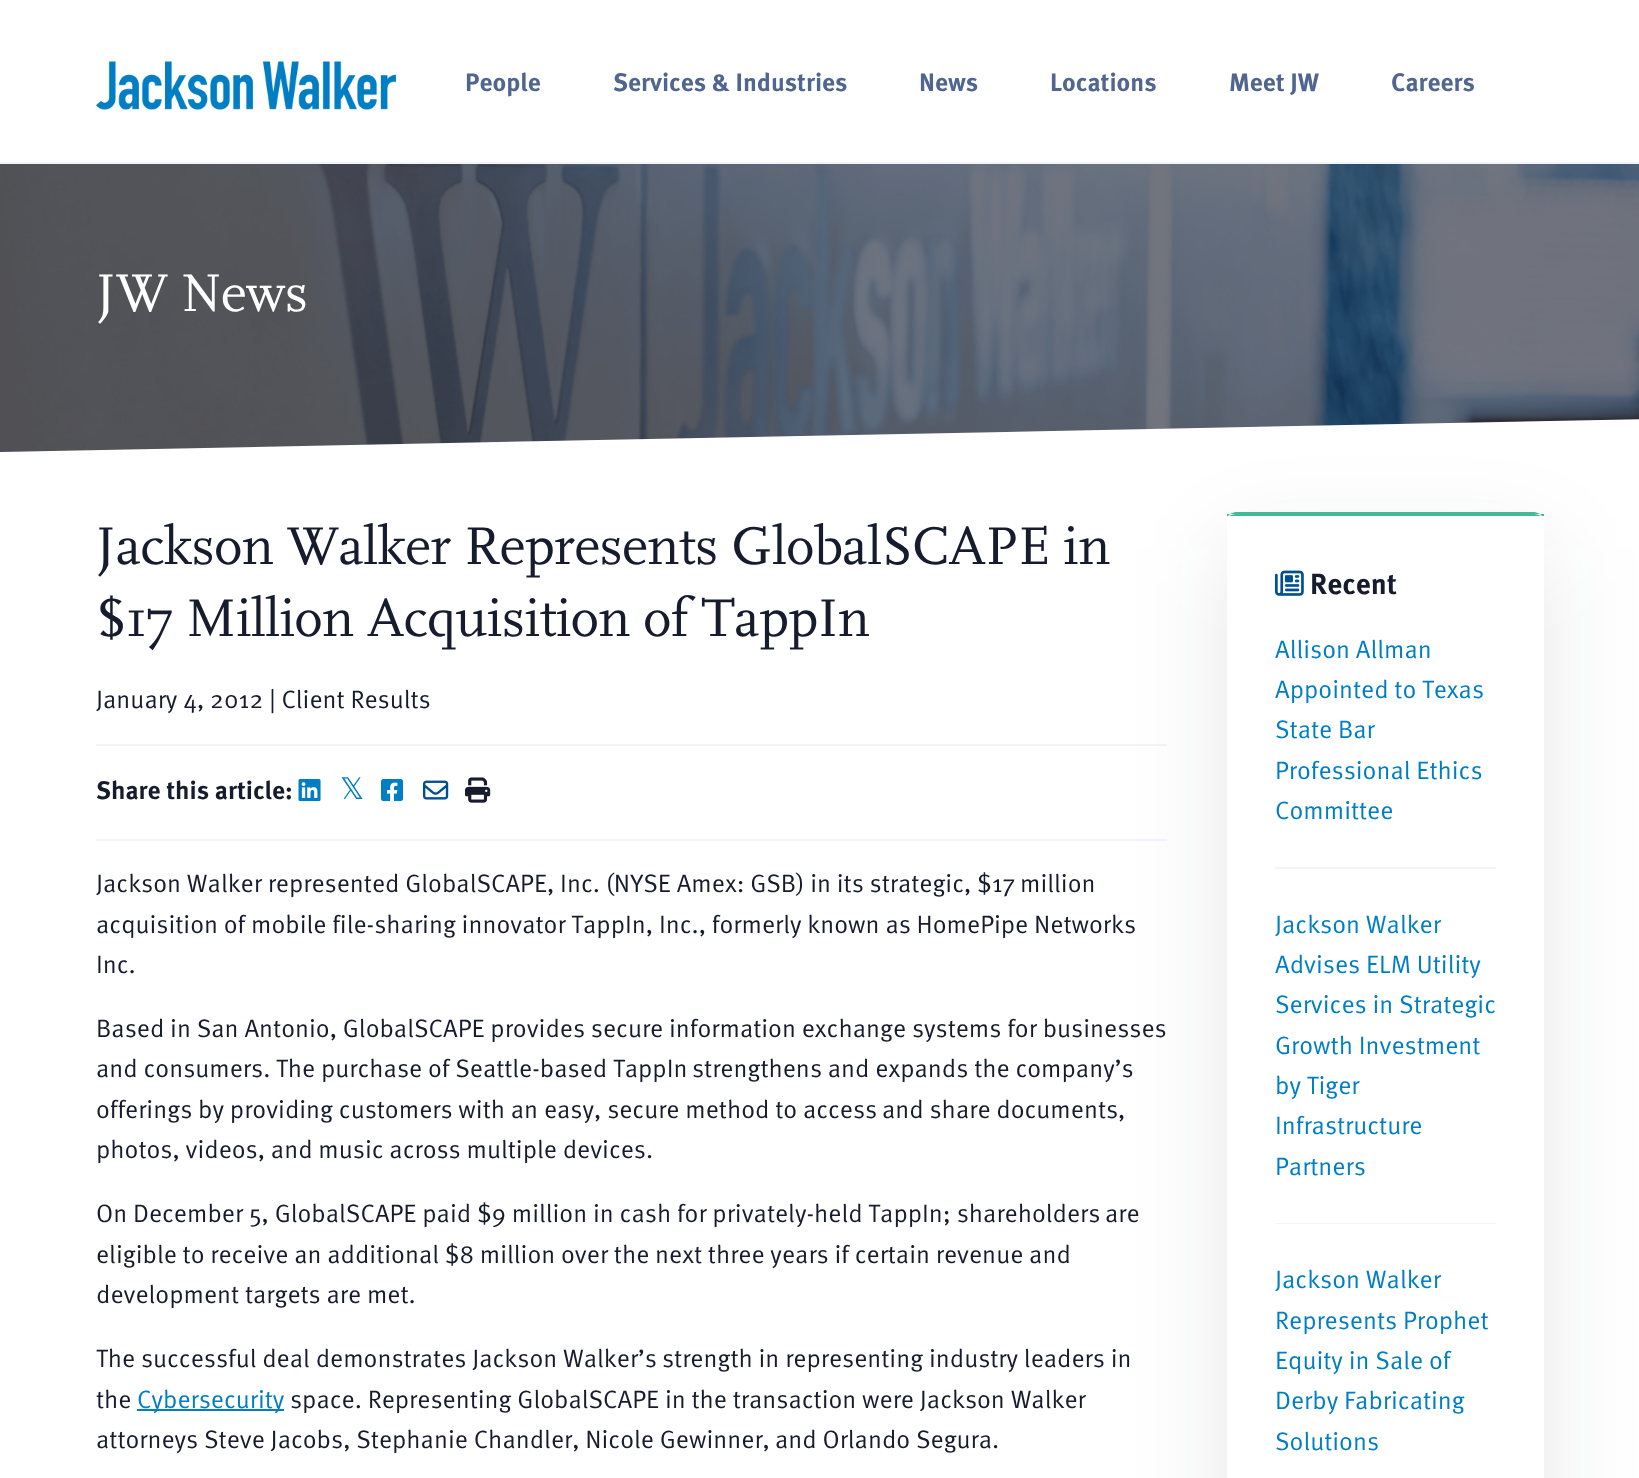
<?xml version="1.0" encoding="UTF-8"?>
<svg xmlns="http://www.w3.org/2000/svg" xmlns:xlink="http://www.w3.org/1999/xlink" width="1639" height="1478">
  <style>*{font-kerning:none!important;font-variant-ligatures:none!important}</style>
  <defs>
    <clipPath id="clip1"><rect y="309" width="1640" height="143" /></clipPath>
  </defs>
  <rect width="100%" height="100%" fill="#ffffff" />
  <rect y="162" width="1639" height="2" fill="#f1f4f8" />
  <image x="96" y="61" width="300" height="49" xlink:href="image1.png" />
  <rect y="451" width="50" height="1" fill="#324a65" />
  <image x="0" y="164" width="1639" height="288" xlink:href="image2.png" />
  <g clip-path="url(#clip1)">
    <path d="M 0 452 l 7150 -143 h 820 v 285 h -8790 v -142 z" fill="#ffffff" />
  </g>
  <rect x="96" y="744" width="1071" height="2" fill="#f1f4f8" />
  <image x="298" y="779" width="23" height="23" xlink:href="image3.png" />
  <image x="381" y="779" width="23" height="23" xlink:href="image4.png" />
  <image x="423" y="780" width="26" height="20" xlink:href="image5.png" />
  <image x="465" y="777" width="26" height="26" xlink:href="image6.png" />
  <rect x="96" y="839" width="1071" height="2" fill="#f1f4f8" />
  <rect x="137" y="1409" width="147" height="2" fill="#007ec3" />
  <rect x="1227" y="548" width="317" height="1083" rx="9" fill="#161c2d" fill-opacity="0.1" filter="blur(48px)" />
  <rect x="1227" y="512" width="317" height="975" rx="9" fill="#ffffff" />
  <path d="M 1236 512 c -2 0 -4 1 -6 2 h -3 v 2 h 1 l 2 -2 h 6 c -3 0 -5 1 -7 2 h 312 c -2 -1 -4 -2 -7 -2 h 6 l 2 2 h 2 v -2 h -4 c -2 -1 -4 -2 -6 -2 z" fill="#42ba96" />
  <image x="1275" y="570" width="29" height="26" xlink:href="image7.png" />
  <rect x="1275" y="867" width="221" height="2" fill="#f1f4f8" />
  <rect x="1275" y="1223" width="221" height="1" fill="#f1f4f8" />
  <text x="465" y="91" style="font-family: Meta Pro; font-size: 25.2px; font-weight: bold; fill: #506690">People</text>
  <text x="613" y="91" style="font-family: Meta Pro; font-size: 25.2px; font-weight: bold; fill: #506690">Services &amp; Industries</text>
  <text x="919" y="91" style="font-family: Meta Pro; font-size: 25.2px; font-weight: bold; fill: #506690">News</text>
  <text x="1050" y="91" style="font-family: Meta Pro; font-size: 25.2px; font-weight: bold; fill: #506690">Locations</text>
  <text x="1229" y="91" style="font-family: Meta Pro; font-size: 25.2px; font-weight: bold; fill: #506690">Meet JW</text>
  <text x="1391" y="91" style="font-family: Meta Pro; font-size: 25.2px; font-weight: bold; fill: #506690">Careers</text>
  <text x="96" y="311" style="font-family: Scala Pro; font-size: 55.5px; letter-spacing: -0.55px; fill: #ffffff">JW News</text>
  <text x="96" y="564" style="font-family: Scala Pro; font-size: 55.5px; letter-spacing: -0.55px; fill: #161c2d">Jackson Walker Represents GlobalSCAPE in</text>
  <text x="96" y="636" style="font-family: Scala Pro; font-size: 55.5px; letter-spacing: -0.55px; fill: #161c2d">$17 Million Acquisition of TappIn</text>
  <text x="96" y="708" style="font-family: Meta Pro; font-size: 25.2px; fill: #161c2d">January 4, 2012 | Client Results</text>
  <text x="96" y="799" style="font-family: Meta Pro; font-size: 25.2px; font-weight: bold; fill: #161c2d">Share this article:</text>
  <text x="340" y="799" style="font-family: DejaVu Sans; font-size: 30px; fill: #007ec3">𝕏</text>
  <text x="96" y="892" style="font-family: Meta Pro; font-size: 25.2px; fill: #161c2d">Jackson Walker represented GlobalSCAPE, Inc. (NYSE Amex: GSB) in its strategic, $17</text>
  <text x="1020" y="892" style="font-family: Meta Pro; font-size: 25.2px; fill: #161c2d">million</text>
  <text x="96" y="933" style="font-family: Meta Pro; font-size: 25.2px; fill: #161c2d">acquisition of mobile file-sharing innovator TappIn, Inc., formerly known as HomePipe Networks</text>
  <text x="96" y="973" style="font-family: Meta Pro; font-size: 25.2px; fill: #161c2d">Inc.</text>
  <text x="96" y="1037" style="font-family: Meta Pro; font-size: 25.2px; fill: #161c2d">Based in San Antonio, GlobalSCAPE provides secure information exchange systems for businesses</text>
  <text x="96" y="1077" style="font-family: Meta Pro; font-size: 25.2px; fill: #161c2d">and consumers. The purchase of Seattle-based TappIn</text>
  <text x="692" y="1077" style="font-family: Meta Pro; font-size: 25.2px; fill: #161c2d">strengthens and expands the company’s</text>
  <text x="96" y="1118" style="font-family: Meta Pro; font-size: 25.2px; fill: #161c2d">offerings by providing customers with an easy, secure method to access</text>
  <text x="882" y="1118" style="font-family: Meta Pro; font-size: 25.2px; fill: #161c2d">and share documents,</text>
  <text x="96" y="1158" style="font-family: Meta Pro; font-size: 25.2px; fill: #161c2d">photos, videos, and music across multiple devices.</text>
  <text x="96" y="1222" style="font-family: Meta Pro; font-size: 25.2px; fill: #161c2d">On December 5, GlobalSCAPE paid $9 million in cash for privately-held TappIn; shareholders</text>
  <text x="1105" y="1222" style="font-family: Meta Pro; font-size: 25.2px; fill: #161c2d">are</text>
  <text x="96" y="1263" style="font-family: Meta Pro; font-size: 25.2px; fill: #161c2d">eligible to receive an additional $8 million over the next three years if certain revenue and</text>
  <text x="96" y="1303" style="font-family: Meta Pro; font-size: 25.2px; fill: #161c2d">development targets are met.</text>
  <text x="96" y="1367" style="font-family: Meta Pro; font-size: 25.2px; fill: #161c2d">The successful deal demonstrates Jackson Walker’s</text>
  <text x="662" y="1367" style="font-family: Meta Pro; font-size: 25.2px; fill: #161c2d">strength in representing industry leaders in</text>
  <text x="96" y="1408" style="font-family: Meta Pro; font-size: 25.2px; fill: #161c2d">the</text>
  <text x="137" y="1408" style="font-family: Meta Pro; font-size: 25.2px; fill: #007ec3">Cybersecurity</text>
  <text x="290" y="1408" style="font-family: Meta Pro; font-size: 25.2px; fill: #161c2d">space. Representing GlobalSCAPE in the transaction were Jackson Walker</text>
  <text x="96" y="1448" style="font-family: Meta Pro; font-size: 25.2px; fill: #161c2d">attorneys Steve Jacobs, Stephanie Chandler, Nicole Gewinner,</text>
  <text x="775" y="1448" style="font-family: Meta Pro; font-size: 25.2px; fill: #161c2d">and Orlando Segura.</text>
  <text x="1310" y="594" style="font-family: Meta Pro; font-size: 29px; font-weight: bold; fill: #161c2d">Recent</text>
  <text x="1275" y="658" style="font-family: Meta Pro; font-size: 25.2px; fill: #007ec3">Allison Allman</text>
  <text x="1275" y="698" style="font-family: Meta Pro; font-size: 25.2px; fill: #007ec3">Appointed to Texas</text>
  <text x="1275" y="738" style="font-family: Meta Pro; font-size: 25.2px; fill: #007ec3">State Bar</text>
  <text x="1275" y="779" style="font-family: Meta Pro; font-size: 25.2px; fill: #007ec3">Professional Ethics</text>
  <text x="1275" y="819" style="font-family: Meta Pro; font-size: 25.2px; fill: #007ec3">Committee</text>
  <text x="1275" y="933" style="font-family: Meta Pro; font-size: 25.2px; fill: #007ec3">Jackson Walker</text>
  <text x="1275" y="973" style="font-family: Meta Pro; font-size: 25.2px; fill: #007ec3">Advises ELM Utility</text>
  <text x="1275" y="1013" style="font-family: Meta Pro; font-size: 25.2px; fill: #007ec3">Services in Strategic</text>
  <text x="1275" y="1054" style="font-family: Meta Pro; font-size: 25.2px; fill: #007ec3">Growth Investment</text>
  <text x="1275" y="1094" style="font-family: Meta Pro; font-size: 25.2px; fill: #007ec3">by Tiger</text>
  <text x="1275" y="1134" style="font-family: Meta Pro; font-size: 25.2px; fill: #007ec3">Infrastructure</text>
  <text x="1275" y="1175" style="font-family: Meta Pro; font-size: 25.2px; fill: #007ec3">Partners</text>
  <text x="1275" y="1288" style="font-family: Meta Pro; font-size: 25.2px; fill: #007ec3">Jackson Walker</text>
  <text x="1275" y="1329" style="font-family: Meta Pro; font-size: 25.2px; fill: #007ec3">Represents Prophet</text>
  <text x="1275" y="1369" style="font-family: Meta Pro; font-size: 25.2px; fill: #007ec3">Equity in Sale of</text>
  <text x="1275" y="1409" style="font-family: Meta Pro; font-size: 25.2px; fill: #007ec3">Derby Fabricating</text>
  <text x="1275" y="1450" style="font-family: Meta Pro; font-size: 25.2px; fill: #007ec3">Solutions</text>
</svg>
